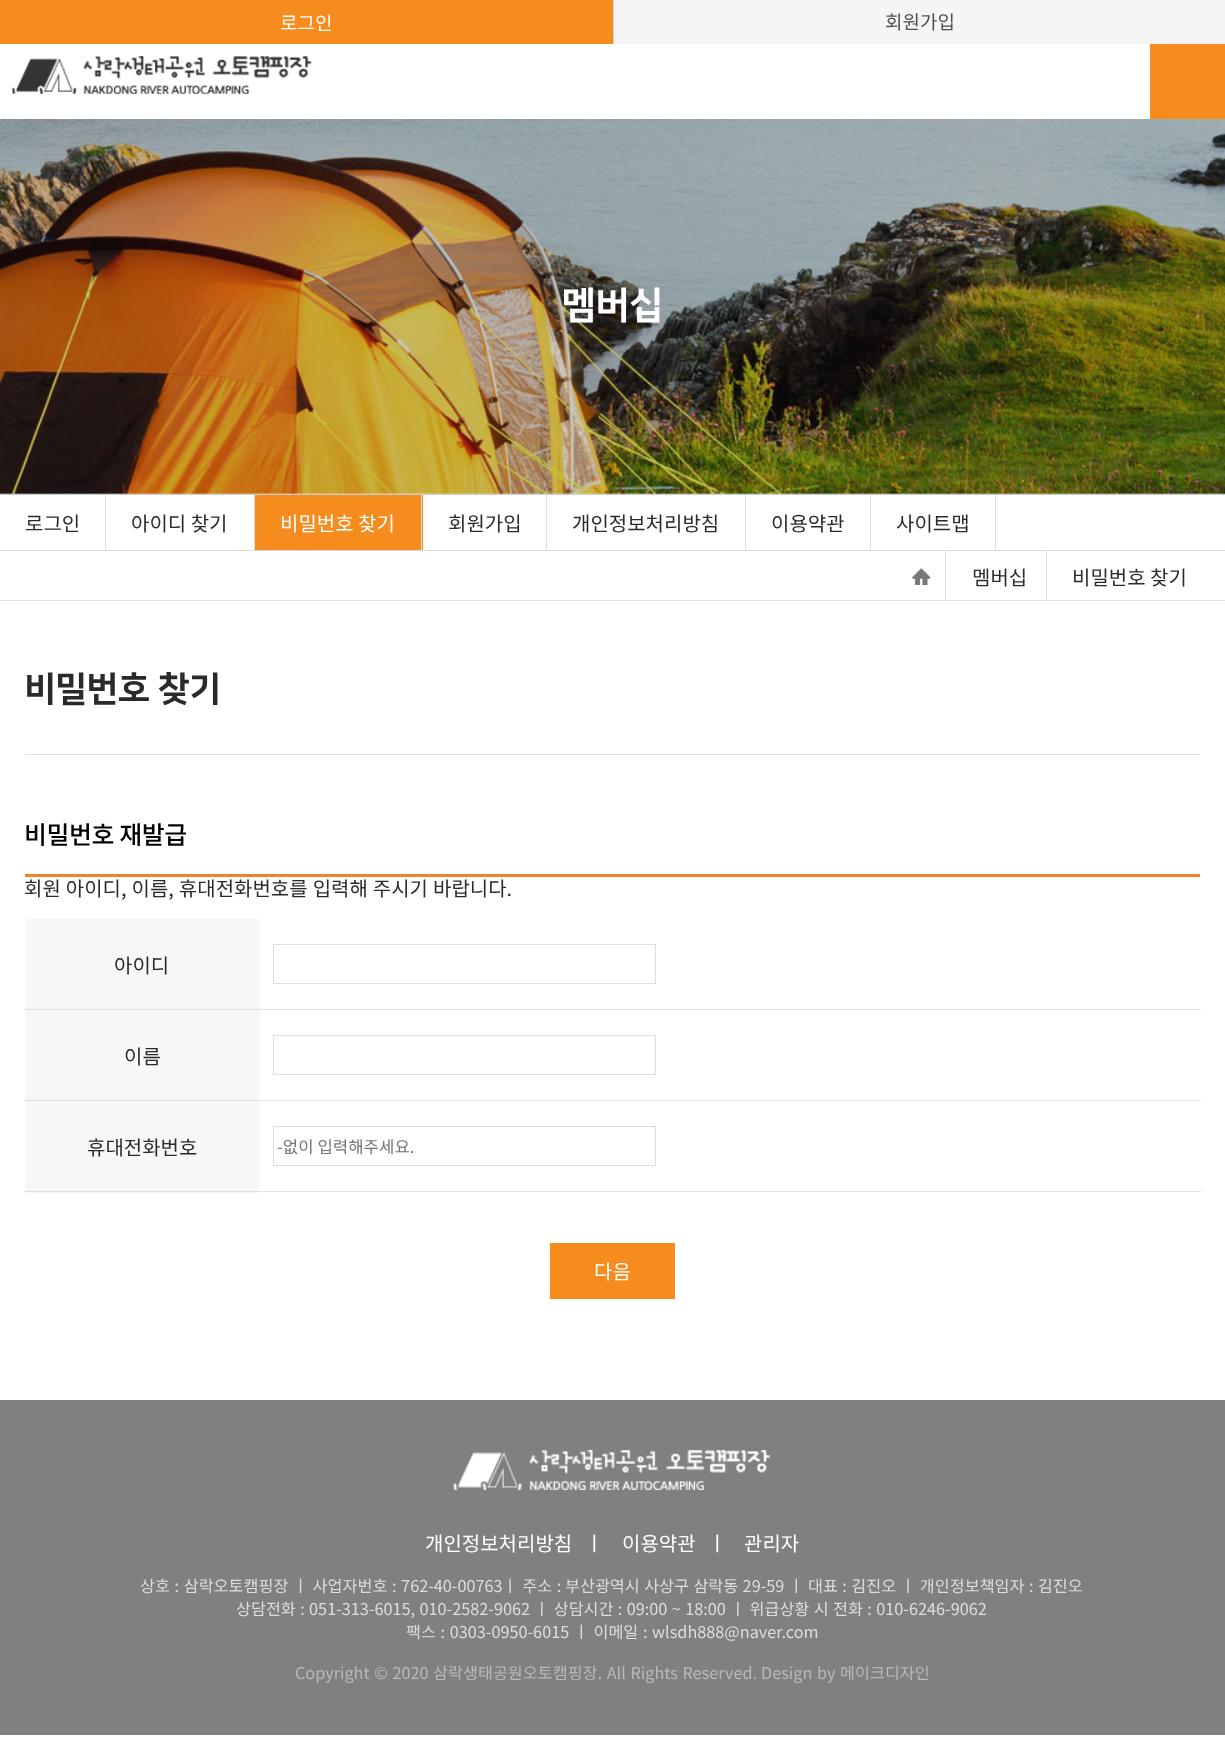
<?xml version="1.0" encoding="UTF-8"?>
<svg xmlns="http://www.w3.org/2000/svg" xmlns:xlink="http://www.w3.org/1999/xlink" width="1225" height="1763">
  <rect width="100%" height="100%" fill="#ffffff" />
  <rect x="614" width="611" height="44" fill="#f5f5f5" />
  <rect width="613" height="44" fill="#f68b1e" />
  <rect x="613" width="1" height="44" fill="#d0d0d0" />
  <image x="12" y="56" width="300" height="38" xlink:href="image1.png" />
  <rect x="1150" y="44" width="75" height="75" fill="#f68b1e" />
  <image x="0" y="119" width="1225" height="375" xlink:href="image2.png" />
  <rect y="494" width="1225" height="1" fill="#cccccc" />
  <rect y="550" width="1225" height="1" fill="#dddddd" />
  <rect x="105" y="495" width="1" height="55" fill="#dddddd" />
  <rect x="254" y="495" width="1" height="55" fill="#dddddd" />
  <rect x="255" y="495" width="168" height="55" fill="#f68b1e" />
  <rect x="421" y="495" width="1" height="55" fill="#dddddd" />
  <rect x="546" y="495" width="1" height="55" fill="#dddddd" />
  <rect x="745" y="495" width="1" height="55" fill="#dddddd" />
  <rect x="870" y="495" width="1" height="55" fill="#dddddd" />
  <rect x="995" y="495" width="1" height="55" fill="#dddddd" />
  <rect y="600" width="1225" height="1" fill="#dddddd" />
  <image x="912" y="568" width="18" height="17" xlink:href="image3.png" />
  <rect x="945" y="551" width="1" height="49" fill="#dddddd" />
  <rect x="1046" y="551" width="1" height="49" fill="#dddddd" />
  <rect x="25" y="754" width="1175" height="1" fill="#dddddd" />
  <rect x="25" y="874" width="1175" height="3" fill="#ee832c" />
  <rect x="24" y="1009" width="1177" height="1" fill="#dfe2e7" />
  <rect x="273.5" y="944.5" width="382" height="39" fill="none" stroke="#dddddd" />
  <rect x="25" y="919" width="235" height="90" fill="#f7f7f7" />
  <rect x="24" y="1100" width="1177" height="1" fill="#dfe2e7" />
  <rect x="273.5" y="1035.5" width="382" height="39" fill="none" stroke="#dddddd" />
  <rect x="25" y="1010" width="235" height="90" fill="#f7f7f7" />
  <rect x="25" y="1101" width="235" height="92" fill="#f7f7f7" />
  <rect x="24" y="1191" width="1177" height="1" fill="#dfe2e7" />
  <rect x="273.5" y="1126.5" width="382" height="39" fill="none" stroke="#dddddd" />
  <rect x="550" y="1243" width="125" height="56" fill="#f68b1e" />
  <rect y="1400" width="1225" height="335" fill="#808080" />
  <image x="453" y="1450" width="318" height="40" xlink:href="image4.png" />
  <text x="280" y="30" style="font-family: Noto Sans KR; font-size: 19px; fill: #ffffff">로그인</text>
  <text x="885" y="29" style="font-family: Noto Sans KR; font-size: 19px; fill: #515151">회원가입</text>
  <text x="562" y="317" style="font-family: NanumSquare; font-size: 37.5px; font-weight: 800; letter-spacing: -0.5px; fill: #ffffff">멤버십</text>
  <text x="25" y="531" style="font-family: Noto Sans KR; font-size: 20px; fill: #2a2a2a">로그인</text>
  <text x="131" y="531" style="font-family: Noto Sans KR; font-size: 20px; fill: #2a2a2a">아이디 찾기</text>
  <text x="280" y="531" style="font-family: Noto Sans KR; font-size: 20px; fill: #ffffff">비밀번호 찾기</text>
  <text x="448" y="531" style="font-family: Noto Sans KR; font-size: 20px; fill: #2a2a2a">회원가입</text>
  <text x="572" y="531" style="font-family: Noto Sans KR; font-size: 20px; fill: #2a2a2a">개인정보처리방침</text>
  <text x="771" y="531" style="font-family: Noto Sans KR; font-size: 20px; fill: #2a2a2a">이용약관</text>
  <text x="896" y="531" style="font-family: Noto Sans KR; font-size: 20px; fill: #2a2a2a">사이트맵</text>
  <text x="972" y="585" style="font-family: Noto Sans KR; font-size: 20px; fill: #2a2a2a">멤버십</text>
  <text x="1072" y="585" style="font-family: Noto Sans KR; font-size: 20px; fill: #2a2a2a">비밀번호 찾기</text>
  <text x="24" y="700" style="font-family: NanumSquare; font-size: 35px; font-weight: 800; letter-spacing: -0.5px; fill: #2a2a2a">비밀번호 찾기</text>
  <text x="24" y="844" style="font-family: Noto Sans KR; font-size: 25px; font-weight: 500; letter-spacing: -0.5px; fill: #000000">비밀번호 재발급</text>
  <text x="24" y="896" word-spacing="0.5" style="font-family: Noto Sans KR; font-size: 20px; fill: #2a2a2a">회원 아이디, 이름, 휴대전화번호를 입력해 주시기 바랍니다.</text>
  <text x="114" y="973" style="font-family: Noto Sans KR; font-size: 20px; fill: #2a2a2a">아이디</text>
  <text x="124" y="1064" style="font-family: Noto Sans KR; font-size: 20px; fill: #2a2a2a">이름</text>
  <text x="87" y="1155" style="font-family: Noto Sans KR; font-size: 20px; fill: #2a2a2a">휴대전화번호</text>
  <text x="277" y="1153" style="font-family: Noto Sans KR; font-size: 16.75px; fill: #757575">-없이 입력해주세요.</text>
  <text x="594" y="1279" style="font-family: Noto Sans KR; font-size: 20px; fill: #ffffff">다음</text>
  <text x="425" y="1551" style="font-family: Noto Sans KR; font-size: 20px; fill: #ffffff">개인정보처리방침</text>
  <text x="585" y="1551" style="font-family: Noto Sans KR; font-size: 20px; fill: #ffffff">ㅣ</text>
  <text x="622" y="1551" style="font-family: Noto Sans KR; font-size: 20px; fill: #ffffff">이용약관</text>
  <text x="708" y="1551" style="font-family: Noto Sans KR; font-size: 20px; fill: #ffffff">ㅣ</text>
  <text x="744" y="1551" style="font-family: Noto Sans KR; font-size: 20px; fill: #ffffff">관리자</text>
  <text x="140" y="1592" word-spacing="1" style="font-family: Noto Sans KR; font-size: 16.25px; fill: #dddddd">상호 : 삼락오토캠핑장 ㅣ 사업자번호 : 762-40-00763ㅣ 주소 :</text>
  <text x="565" y="1592" word-spacing="0.75" style="font-family: Noto Sans KR; font-size: 16.25px; fill: #dddddd">부산광역시 사상구 삼락동 29-59 ㅣ 대표 : 김진오 ㅣ 개인정보책임자 : 김진오</text>
  <text x="236" y="1615" word-spacing="0.75" style="font-family: Noto Sans KR; font-size: 16.25px; fill: #dddddd">상담전화 : 051-313-6015, 010-2582-9062 ㅣ 상담시간 : 09:00 ~ 18:00 ㅣ 위급상황 시 전화 : 010-6246-9062</text>
  <text x="406" y="1638" word-spacing="1" style="font-family: Noto Sans KR; font-size: 16.25px; fill: #dddddd">팩스 : 0303-0950-6015 ㅣ 이메일 : wlsdh888@naver.com</text>
  <text x="295" y="1679" word-spacing="1" style="font-family: Noto Sans KR; font-size: 16.25px; fill: #b9b9b9">Copyright © 2020 삼락생태공원오토캠핑장. All Rights Reserved.</text>
  <text x="761" y="1679" word-spacing="1" style="font-family: Noto Sans KR; font-size: 16.25px; fill: #b9b9b9">Design by 메이크디자인</text>
</svg>
